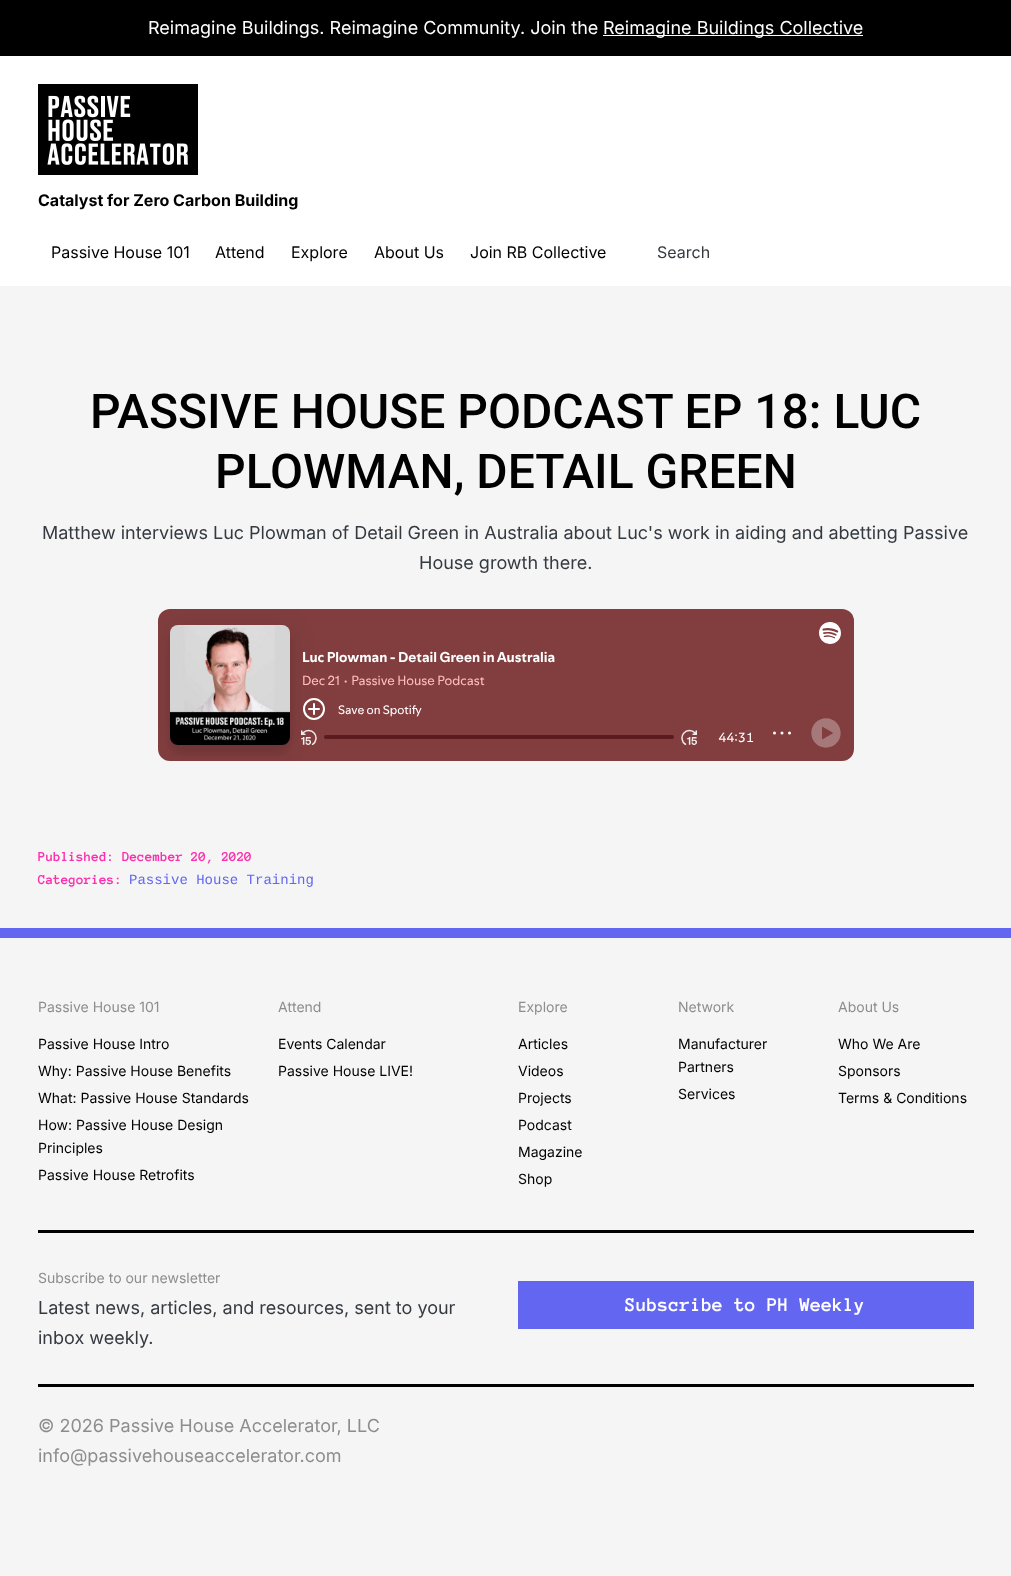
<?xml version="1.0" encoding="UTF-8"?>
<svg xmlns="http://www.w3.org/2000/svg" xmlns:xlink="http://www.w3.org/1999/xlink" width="1011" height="1576">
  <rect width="100%" height="100%" fill="#f5f5f5" />
  <rect width="1011" height="56" fill="#000000" />
  <rect x="603" y="35" width="260" height="1" fill="#ffffff" />
  <rect y="56" width="1011" height="230" fill="#ffffff" />
  <image x="38" y="84" width="160" height="91" xlink:href="image1.png" />
  <image x="158" y="609" width="696" height="152" xlink:href="image2.png" />
  <rect y="928" width="1011" height="10" fill="#6366f1" />
  <rect x="38" y="1230" width="936" height="3" fill="#000000" />
  <rect x="518" y="1281" width="456" height="48" fill="#6366f1" />
  <rect x="38" y="1384" width="936" height="3" fill="#000000" />
  <text x="148" y="34" style="font-family: Inter; font-size: 18px; fill: #ffffff">Reimagine Buildings. Reimagine Community. Join the</text>
  <text x="603" y="34" style="font-family: Inter; font-size: 18px; fill: #ffffff">Reimagine Buildings Collective</text>
  <text x="38" y="206" style="font-family: Inter; font-size: 16px; font-weight: bold; fill: #000000">Catalyst for Zero Carbon Building</text>
  <text x="51" y="258" style="font-family: Inter; font-size: 16px; fill: #000000">Passive House 101</text>
  <text x="215" y="258" style="font-family: Inter; font-size: 16px; fill: #000000">Attend</text>
  <text x="291" y="258" style="font-family: Inter; font-size: 16px; fill: #000000">Explore</text>
  <text x="374" y="258" style="font-family: Inter; font-size: 16px; fill: #000000">About Us</text>
  <text x="470" y="258" style="font-family: Inter; font-size: 16px; fill: #000000">Join RB Collective</text>
  <text x="657" y="258" style="font-family: Inter; font-size: 16px; fill: #343a40">Search</text>
  <text x="90" y="428" style="font-family: Roboto; font-size: 48px; font-weight: 500; fill: #000000">PASSIVE HOUSE PODCAST EP 18: LUC</text>
  <text x="215" y="488" style="font-family: Roboto; font-size: 48px; font-weight: 500; fill: #000000">PLOWMAN, DETAIL GREEN</text>
  <text x="42" y="539" style="font-family: Inter; font-size: 18px; fill: #343a40">Matthew interviews Luc Plowman of Detail Green in Australia about Luc's work in aiding and abetting Passive</text>
  <text x="419" y="569" style="font-family: Inter; font-size: 18px; fill: #343a40">House growth there.</text>
  <text x="38" y="861" style="font-family: Anonymous Pro; font-size: 14px; font-weight: bold; fill: #fc30ae">Published: December 20, 2020</text>
  <text x="38" y="884" style="font-family: Anonymous Pro; font-size: 14px; font-weight: bold; fill: #fc30ae">Categories:</text>
  <text x="129" y="884" style="font-family: Liberation Mono; font-size: 14px; fill: #6366f1">Passive House Training</text>
  <text x="38" y="1012" style="font-family: Inter; font-size: 14px; fill: #8d8d8d">Passive House 101</text>
  <text x="38" y="1049" style="font-family: Inter; font-size: 14px; fill: #000000">Passive House Intro</text>
  <text x="38" y="1076" style="font-family: Inter; font-size: 14px; fill: #000000">Why: Passive House Benefits</text>
  <text x="38" y="1103" style="font-family: Inter; font-size: 14px; fill: #000000">What: Passive House Standards</text>
  <text x="38" y="1130" style="font-family: Inter; font-size: 14px; fill: #000000">How: Passive House Design</text>
  <text x="38" y="1153" style="font-family: Inter; font-size: 14px; fill: #000000">Principles</text>
  <text x="38" y="1180" style="font-family: Inter; font-size: 14px; fill: #000000">Passive House Retrofits</text>
  <text x="278" y="1012" style="font-family: Inter; font-size: 14px; fill: #8d8d8d">Attend</text>
  <text x="278" y="1049" style="font-family: Inter; font-size: 14px; fill: #000000">Events Calendar</text>
  <text x="278" y="1076" style="font-family: Inter; font-size: 14px; fill: #000000">Passive House LIVE!</text>
  <text x="518" y="1012" style="font-family: Inter; font-size: 14px; fill: #8d8d8d">Explore</text>
  <text x="518" y="1049" style="font-family: Inter; font-size: 14px; fill: #000000">Articles</text>
  <text x="518" y="1076" style="font-family: Inter; font-size: 14px; fill: #000000">Videos</text>
  <text x="518" y="1103" style="font-family: Inter; font-size: 14px; fill: #000000">Projects</text>
  <text x="518" y="1130" style="font-family: Inter; font-size: 14px; fill: #000000">Podcast</text>
  <text x="518" y="1157" style="font-family: Inter; font-size: 14px; fill: #000000">Magazine</text>
  <text x="518" y="1184" style="font-family: Inter; font-size: 14px; fill: #000000">Shop</text>
  <text x="678" y="1012" style="font-family: Inter; font-size: 14px; fill: #8d8d8d">Network</text>
  <text x="678" y="1049" style="font-family: Inter; font-size: 14px; fill: #000000">Manufacturer</text>
  <text x="678" y="1072" style="font-family: Inter; font-size: 14px; fill: #000000">Partners</text>
  <text x="678" y="1099" style="font-family: Inter; font-size: 14px; fill: #000000">Services</text>
  <text x="838" y="1012" style="font-family: Inter; font-size: 14px; fill: #8d8d8d">About Us</text>
  <text x="838" y="1049" style="font-family: Inter; font-size: 14px; fill: #000000">Who We Are</text>
  <text x="838" y="1076" style="font-family: Inter; font-size: 14px; fill: #000000">Sponsors</text>
  <text x="838" y="1103" style="font-family: Inter; font-size: 14px; fill: #000000">Terms &amp; Conditions</text>
  <text x="38" y="1283" style="font-family: Inter; font-size: 14px; fill: #8d8d8d">Subscribe to our newsletter</text>
  <text x="38" y="1314" style="font-family: Inter; font-size: 18px; fill: #343a40">Latest news, articles, and resources, sent to your</text>
  <text x="38" y="1344" style="font-family: Inter; font-size: 18px; fill: #343a40">inbox weekly.</text>
  <text x="625" y="1311" style="font-family: Anonymous Pro; font-size: 20px; font-weight: bold; fill: #ffffff">Subscribe to PH Weekly</text>
  <text x="38" y="1432" style="font-family: Inter; font-size: 18px; fill: #8d8d8d">© 2026 Passive House Accelerator, LLC</text>
  <text x="38" y="1462" style="font-family: Inter; font-size: 18px; fill: #8d8d8d">info@passivehouseaccelerator.com</text>
</svg>
